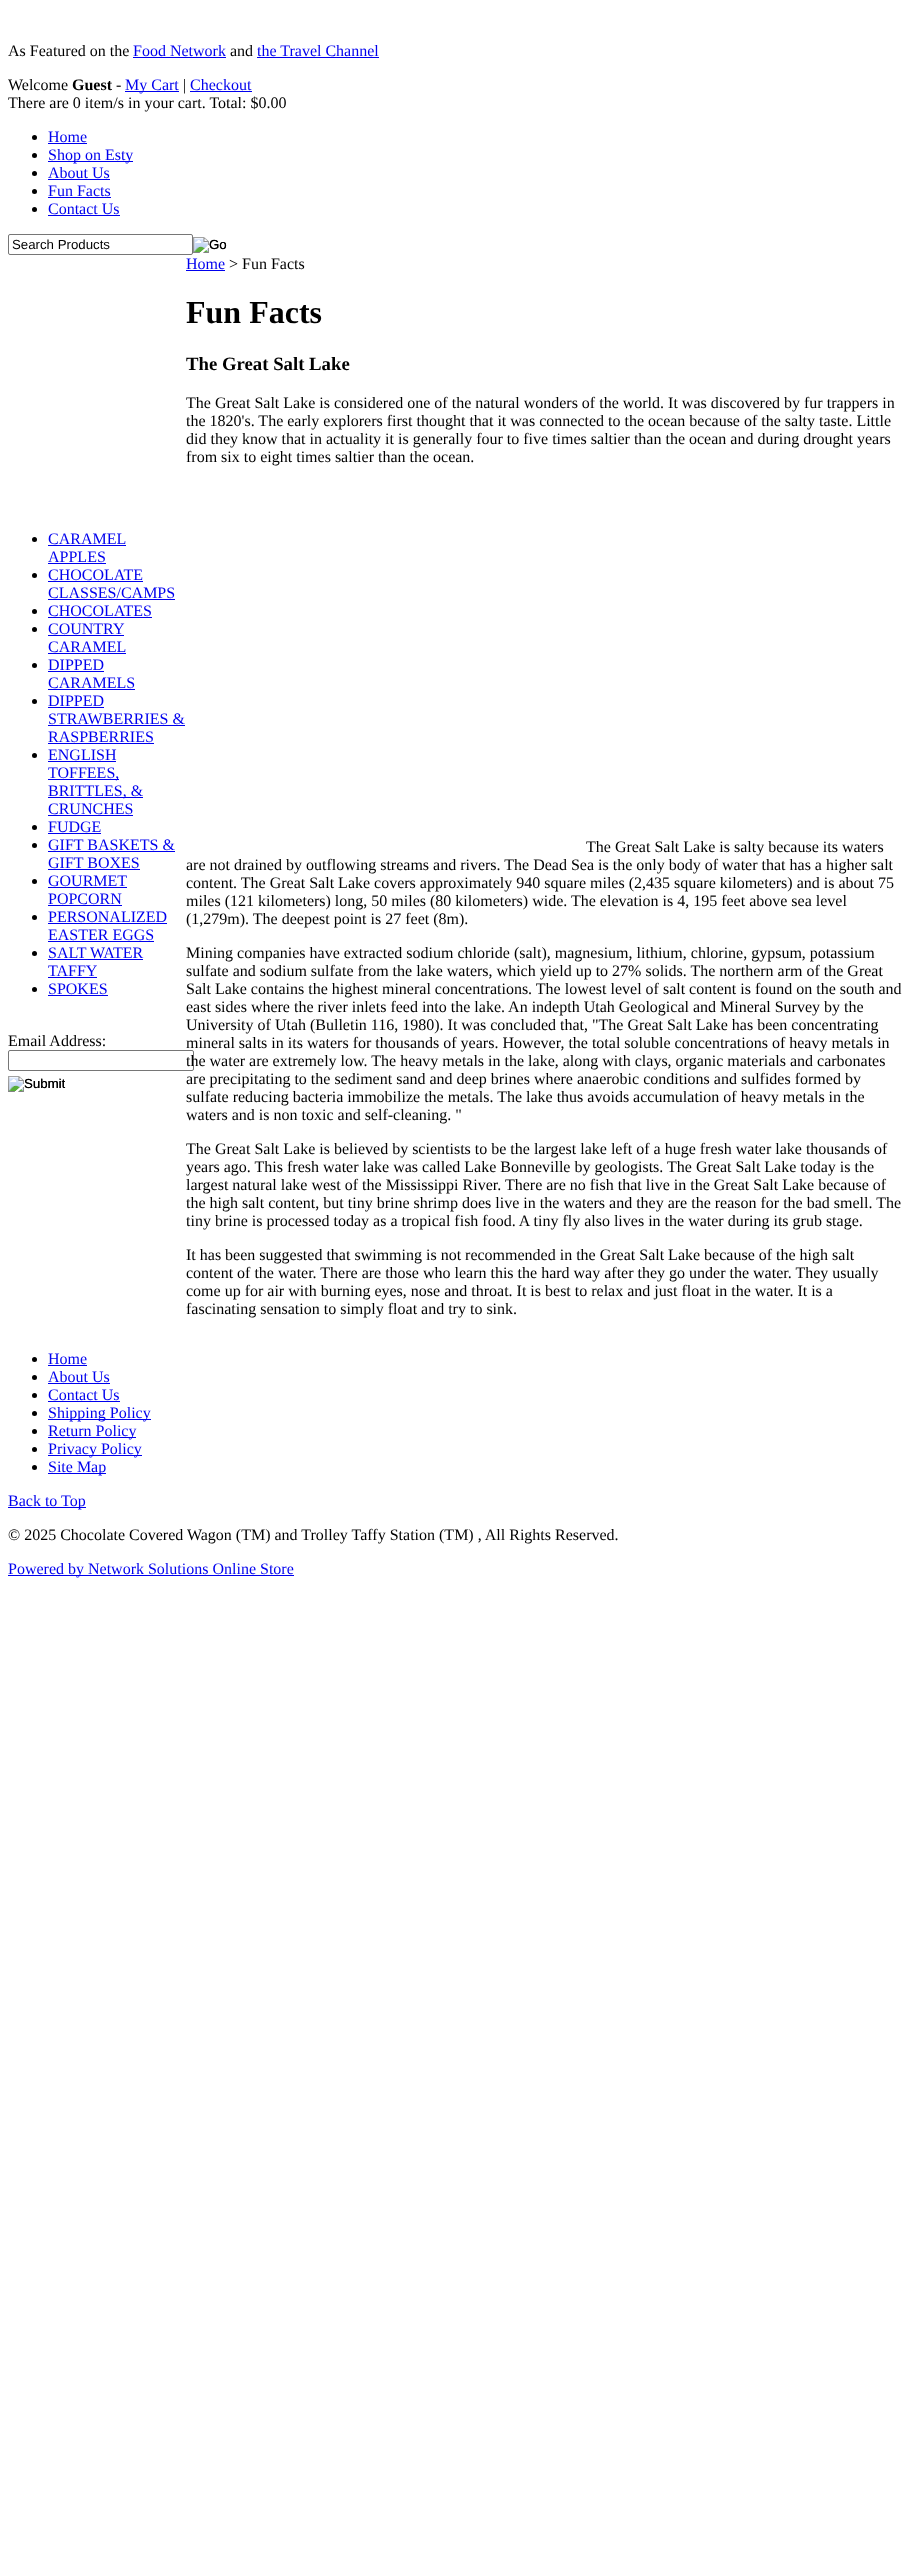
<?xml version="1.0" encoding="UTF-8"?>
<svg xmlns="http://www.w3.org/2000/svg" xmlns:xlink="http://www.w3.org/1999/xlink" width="911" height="2567">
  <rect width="100%" height="100%" fill="#ffffff" />
  <rect x="133" y="57" width="93" height="1" fill="#0000ee" />
  <rect x="257" y="57" width="122" height="1" fill="#0000ee" />
  <rect x="125" y="91" width="54" height="1" fill="#0000ee" />
  <rect x="190" y="91" width="62" height="1" fill="#0000ee" />
  <circle cx="34.5" cy="137.5" r="2.5" fill="#000000" />
  <rect x="48" y="143" width="39" height="1" fill="#0000ee" />
  <circle cx="34.5" cy="155.5" r="2.5" fill="#000000" />
  <rect x="48" y="161" width="85" height="1" fill="#0000ee" />
  <circle cx="34.5" cy="173.5" r="2.5" fill="#000000" />
  <rect x="48" y="179" width="62" height="1" fill="#0000ee" />
  <circle cx="34.5" cy="191.5" r="2.5" fill="#000000" />
  <rect x="48" y="197" width="63" height="1" fill="#0000ee" />
  <circle cx="34.5" cy="209.5" r="2.5" fill="#000000" />
  <rect x="48" y="215" width="72" height="1" fill="#0000ee" />
  <rect x="8.5" y="234.5" width="184" height="20" rx="1.5" fill="none" stroke="#767676" />
  <image x="193" y="237" width="34" height="16" xlink:href="image1.png" />
  <circle cx="34.5" cy="539.5" r="2.5" fill="#000000" />
  <rect x="48" y="545" width="78" height="1" fill="#0000ee" />
  <rect x="48" y="563" width="58" height="1" fill="#0000ee" />
  <circle cx="34.5" cy="575.5" r="2.5" fill="#000000" />
  <rect x="48" y="581" width="95" height="1" fill="#0000ee" />
  <rect x="48" y="599" width="127" height="1" fill="#0000ee" />
  <circle cx="34.5" cy="611.5" r="2.5" fill="#000000" />
  <rect x="48" y="617" width="104" height="1" fill="#0000ee" />
  <circle cx="34.5" cy="629.5" r="2.5" fill="#000000" />
  <rect x="48" y="635" width="76" height="1" fill="#0000ee" />
  <rect x="48" y="653" width="78" height="1" fill="#0000ee" />
  <circle cx="34.5" cy="665.5" r="2.5" fill="#000000" />
  <rect x="48" y="671" width="56" height="1" fill="#0000ee" />
  <rect x="48" y="689" width="87" height="1" fill="#0000ee" />
  <circle cx="34.5" cy="701.5" r="2.5" fill="#000000" />
  <rect x="48" y="707" width="56" height="1" fill="#0000ee" />
  <rect x="48" y="725" width="137" height="1" fill="#0000ee" />
  <rect x="48" y="743" width="106" height="1" fill="#0000ee" />
  <circle cx="34.5" cy="755.5" r="2.5" fill="#000000" />
  <rect x="48" y="761" width="68" height="1" fill="#0000ee" />
  <rect x="48" y="779" width="71" height="1" fill="#0000ee" />
  <rect x="48" y="797" width="95" height="1" fill="#0000ee" />
  <rect x="48" y="815" width="85" height="1" fill="#0000ee" />
  <circle cx="34.5" cy="827.5" r="2.5" fill="#000000" />
  <rect x="48" y="833" width="53" height="1" fill="#0000ee" />
  <circle cx="34.5" cy="845.5" r="2.5" fill="#000000" />
  <rect x="48" y="851" width="127" height="1" fill="#0000ee" />
  <rect x="48" y="869" width="92" height="1" fill="#0000ee" />
  <circle cx="34.5" cy="881.5" r="2.5" fill="#000000" />
  <rect x="48" y="887" width="79" height="1" fill="#0000ee" />
  <rect x="48" y="905" width="74" height="1" fill="#0000ee" />
  <circle cx="34.5" cy="917.5" r="2.5" fill="#000000" />
  <rect x="48" y="923" width="119" height="1" fill="#0000ee" />
  <rect x="48" y="941" width="106" height="1" fill="#0000ee" />
  <circle cx="34.5" cy="953.5" r="2.5" fill="#000000" />
  <rect x="48" y="959" width="95" height="1" fill="#0000ee" />
  <rect x="48" y="977" width="49" height="1" fill="#0000ee" />
  <circle cx="34.5" cy="989.5" r="2.5" fill="#000000" />
  <rect x="48" y="995" width="60" height="1" fill="#0000ee" />
  <rect x="8.5" y="1050.5" width="185" height="20" rx="1.5" fill="none" stroke="#767676" />
  <image x="8" y="1076" width="57" height="16" xlink:href="image2.png" />
  <rect x="186" y="270" width="39" height="1" fill="#0000ee" />
  <circle cx="34.5" cy="1359.5" r="2.5" fill="#000000" />
  <rect x="48" y="1365" width="39" height="1" fill="#0000ee" />
  <circle cx="34.5" cy="1377.5" r="2.5" fill="#000000" />
  <rect x="48" y="1383" width="62" height="1" fill="#0000ee" />
  <circle cx="34.5" cy="1395.5" r="2.5" fill="#000000" />
  <rect x="48" y="1401" width="72" height="1" fill="#0000ee" />
  <circle cx="34.5" cy="1413.5" r="2.5" fill="#000000" />
  <rect x="48" y="1419" width="103" height="1" fill="#0000ee" />
  <circle cx="34.5" cy="1431.5" r="2.5" fill="#000000" />
  <rect x="48" y="1437" width="88" height="1" fill="#0000ee" />
  <circle cx="34.5" cy="1449.5" r="2.5" fill="#000000" />
  <rect x="48" y="1455" width="94" height="1" fill="#0000ee" />
  <circle cx="34.5" cy="1467.5" r="2.5" fill="#000000" />
  <rect x="48" y="1473" width="58" height="1" fill="#0000ee" />
  <rect x="8" y="1507" width="78" height="1" fill="#0000ee" />
  <rect x="8" y="1575" width="286" height="1" fill="#0000ee" />
  <text x="8" y="56" style="font-family: Liberation Serif; font-size: 16px; fill: #000000">As Featured on the</text>
  <text x="133" y="56" style="font-family: Liberation Serif; font-size: 16px; fill: #0000ee">Food Network</text>
  <text x="230" y="56" style="font-family: Liberation Serif; font-size: 16px; fill: #000000">and</text>
  <text x="257" y="56" style="font-family: Liberation Serif; font-size: 16px; fill: #0000ee">the Travel Channel</text>
  <text x="8" y="90" style="font-family: Liberation Serif; font-size: 16px; fill: #000000">Welcome</text>
  <text x="72" y="90" style="font-family: Liberation Serif; font-size: 16px; font-weight: bold; fill: #000000">Guest</text>
  <text x="116" y="90" style="font-family: Liberation Serif; font-size: 16px; fill: #000000">-</text>
  <text x="125" y="90" style="font-family: Liberation Serif; font-size: 16px; fill: #0000ee">My Cart</text>
  <text x="183" y="90" style="font-family: Liberation Serif; font-size: 16px; fill: #000000">|</text>
  <text x="190" y="90" style="font-family: Liberation Serif; font-size: 16px; fill: #0000ee">Checkout</text>
  <text x="8" y="108" style="font-family: Liberation Serif; font-size: 16px; fill: #000000">There are 0 item/s in your cart. Total: $0.00</text>
  <text x="48" y="142" style="font-family: Liberation Serif; font-size: 16px; fill: #0000ee">Home</text>
  <text x="48" y="160" style="font-family: Liberation Serif; font-size: 16px; fill: #0000ee">Shop on Esty</text>
  <text x="48" y="178" style="font-family: Liberation Serif; font-size: 16px; fill: #0000ee">About Us</text>
  <text x="48" y="196" style="font-family: Liberation Serif; font-size: 16px; fill: #0000ee">Fun Facts</text>
  <text x="48" y="214" style="font-family: Liberation Serif; font-size: 16px; fill: #0000ee">Contact Us</text>
  <text x="12" y="249" style="font-family: Liberation Sans; font-size: 13.25px; fill: #000000">Search Products</text>
  <text x="209" y="249" style="font-family: Liberation Sans; font-size: 13.25px; fill: #000000">Go</text>
  <text x="48" y="544" style="font-family: Liberation Serif; font-size: 16px; fill: #0000ee">CARAMEL</text>
  <text x="48" y="562" style="font-family: Liberation Serif; font-size: 16px; fill: #0000ee">APPLES</text>
  <text x="48" y="580" style="font-family: Liberation Serif; font-size: 16px; fill: #0000ee">CHOCOLATE</text>
  <text x="48" y="598" style="font-family: Liberation Serif; font-size: 16px; fill: #0000ee">CLASSES/CAMPS</text>
  <text x="48" y="616" style="font-family: Liberation Serif; font-size: 16px; fill: #0000ee">CHOCOLATES</text>
  <text x="48" y="634" style="font-family: Liberation Serif; font-size: 16px; fill: #0000ee">COUNTRY</text>
  <text x="48" y="652" style="font-family: Liberation Serif; font-size: 16px; fill: #0000ee">CARAMEL</text>
  <text x="48" y="670" style="font-family: Liberation Serif; font-size: 16px; fill: #0000ee">DIPPED</text>
  <text x="48" y="688" style="font-family: Liberation Serif; font-size: 16px; fill: #0000ee">CARAMELS</text>
  <text x="48" y="706" style="font-family: Liberation Serif; font-size: 16px; fill: #0000ee">DIPPED</text>
  <text x="48" y="724" style="font-family: Liberation Serif; font-size: 16px; fill: #0000ee">STRAWBERRIES &amp;</text>
  <text x="48" y="742" style="font-family: Liberation Serif; font-size: 16px; fill: #0000ee">RASPBERRIES</text>
  <text x="48" y="760" style="font-family: Liberation Serif; font-size: 16px; fill: #0000ee">ENGLISH</text>
  <text x="48" y="778" style="font-family: Liberation Serif; font-size: 16px; fill: #0000ee">TOFFEES,</text>
  <text x="48" y="796" style="font-family: Liberation Serif; font-size: 16px; fill: #0000ee">BRITTLES, &amp;</text>
  <text x="48" y="814" style="font-family: Liberation Serif; font-size: 16px; fill: #0000ee">CRUNCHES</text>
  <text x="48" y="832" style="font-family: Liberation Serif; font-size: 16px; fill: #0000ee">FUDGE</text>
  <text x="48" y="850" style="font-family: Liberation Serif; font-size: 16px; fill: #0000ee">GIFT BASKETS &amp;</text>
  <text x="48" y="868" style="font-family: Liberation Serif; font-size: 16px; fill: #0000ee">GIFT BOXES</text>
  <text x="48" y="886" style="font-family: Liberation Serif; font-size: 16px; fill: #0000ee">GOURMET</text>
  <text x="48" y="904" style="font-family: Liberation Serif; font-size: 16px; fill: #0000ee">POPCORN</text>
  <text x="48" y="922" style="font-family: Liberation Serif; font-size: 16px; fill: #0000ee">PERSONALIZED</text>
  <text x="48" y="940" style="font-family: Liberation Serif; font-size: 16px; fill: #0000ee">EASTER EGGS</text>
  <text x="48" y="958" style="font-family: Liberation Serif; font-size: 16px; fill: #0000ee">SALT WATER</text>
  <text x="48" y="976" style="font-family: Liberation Serif; font-size: 16px; fill: #0000ee">TAFFY</text>
  <text x="48" y="994" style="font-family: Liberation Serif; font-size: 16px; fill: #0000ee">SPOKES</text>
  <text x="8" y="1046" style="font-family: Liberation Serif; font-size: 16px; fill: #000000">Email Address:</text>
  <text x="24" y="1088" style="font-family: Liberation Sans; font-size: 13.25px; fill: #000000">Submit</text>
  <text x="186" y="269" style="font-family: Liberation Serif; font-size: 16px; fill: #0000ee">Home</text>
  <text x="229" y="269" style="font-family: Liberation Serif; font-size: 16px; fill: #000000">&gt; Fun Facts</text>
  <text x="186" y="323" style="font-family: Liberation Serif; font-size: 32px; font-weight: bold; fill: #000000">Fun Facts</text>
  <text x="186" y="370" style="font-family: Liberation Serif; font-size: 18.75px; font-weight: bold; fill: #000000">The Great Salt Lake</text>
  <text x="186" y="408" style="font-family: Liberation Serif; font-size: 16px; fill: #000000">The Great Salt Lake is considered one of the natural wonders of the world. It was discovered by fur trappers in</text>
  <text x="186" y="426" style="font-family: Liberation Serif; font-size: 16px; fill: #000000">the 1820's. The early explorers first thought that it was connected to the ocean because of the salty taste. Little</text>
  <text x="186" y="444" style="font-family: Liberation Serif; font-size: 16px; fill: #000000">did they know that in actuality it is generally four to five times saltier than the ocean and during drought years</text>
  <text x="186" y="462" style="font-family: Liberation Serif; font-size: 16px; fill: #000000">from six to eight times saltier than the ocean.</text>
  <text x="586" y="852" style="font-family: Liberation Serif; font-size: 16px; fill: #000000">The Great Salt Lake is salty because its waters</text>
  <text x="186" y="870" style="font-family: Liberation Serif; font-size: 16px; fill: #000000">are not drained by outflowing streams and rivers. The Dead Sea is the only body of water that has a higher salt</text>
  <text x="186" y="888" style="font-family: Liberation Serif; font-size: 16px; fill: #000000">content. The Great Salt Lake covers approximately 940 square miles (2,435 square kilometers) and is about 75</text>
  <text x="186" y="906" style="font-family: Liberation Serif; font-size: 16px; fill: #000000">miles (121 kilometers) long, 50 miles (80 kilometers) wide. The elevation is 4, 195 feet above sea level</text>
  <text x="186" y="924" style="font-family: Liberation Serif; font-size: 16px; fill: #000000">(1,279m). The deepest point is 27 feet (8m).</text>
  <text x="186" y="958" style="font-family: Liberation Serif; font-size: 16px; fill: #000000">Mining companies have extracted sodium chloride (salt), magnesium, lithium, chlorine, gypsum, potassium</text>
  <text x="186" y="976" style="font-family: Liberation Serif; font-size: 16px; fill: #000000">sulfate and sodium sulfate from the lake waters, which yield up to 27% solids. The northern arm of the Great</text>
  <text x="186" y="994" style="font-family: Liberation Serif; font-size: 16px; fill: #000000">Salt Lake contains the highest mineral concentrations. The lowest level of salt content is found on the south and</text>
  <text x="186" y="1012" style="font-family: Liberation Serif; font-size: 16px; fill: #000000">east sides where the river inlets feed into the lake. An indepth Utah Geological and Mineral Survey by the</text>
  <text x="186" y="1030" style="font-family: Liberation Serif; font-size: 16px; fill: #000000">University of Utah (Bulletin 116, 1980). It was concluded that, "The Great Salt Lake has been concentrating</text>
  <text x="186" y="1048" style="font-family: Liberation Serif; font-size: 16px; fill: #000000">mineral salts in its waters for thousands of years. However, the total soluble concentrations of heavy metals in</text>
  <text x="186" y="1066" style="font-family: Liberation Serif; font-size: 16px; fill: #000000">the water are extremely low. The heavy metals in the lake, along with clays, organic materials and carbonates</text>
  <text x="186" y="1084" style="font-family: Liberation Serif; font-size: 16px; fill: #000000">are precipitating to the sediment sand and deep brines where anaerobic conditions and sulfides formed by</text>
  <text x="186" y="1102" style="font-family: Liberation Serif; font-size: 16px; fill: #000000">sulfate reducing bacteria immobilize the metals. The lake thus avoids accumulation of heavy metals in the</text>
  <text x="186" y="1120" style="font-family: Liberation Serif; font-size: 16px; fill: #000000">waters and is non toxic and self-cleaning. "</text>
  <text x="186" y="1154" style="font-family: Liberation Serif; font-size: 16px; fill: #000000">The Great Salt Lake is believed by scientists to be the largest lake left of a huge fresh water lake thousands of</text>
  <text x="186" y="1172" style="font-family: Liberation Serif; font-size: 16px; fill: #000000">years ago. This fresh water lake was called Lake Bonneville by geologists. The Great Salt Lake today is the</text>
  <text x="186" y="1190" style="font-family: Liberation Serif; font-size: 16px; fill: #000000">largest natural lake west of the Mississippi River. There are no fish that live in the Great Salt Lake because of</text>
  <text x="186" y="1208" style="font-family: Liberation Serif; font-size: 16px; fill: #000000">the high salt content, but tiny brine shrimp does live in the waters and they are the reason for the bad smell. The</text>
  <text x="186" y="1226" style="font-family: Liberation Serif; font-size: 16px; fill: #000000">tiny brine is processed today as a tropical fish food. A tiny fly also lives in the water during its grub stage.</text>
  <text x="186" y="1260" style="font-family: Liberation Serif; font-size: 16px; fill: #000000">It has been suggested that swimming is not recommended in the Great Salt Lake because of the high salt</text>
  <text x="186" y="1278" style="font-family: Liberation Serif; font-size: 16px; fill: #000000">content of the water. There are those who learn this the hard way after they go under the water. They usually</text>
  <text x="186" y="1296" style="font-family: Liberation Serif; font-size: 16px; fill: #000000">come up for air with burning eyes, nose and throat. It is best to relax and just float in the water. It is a</text>
  <text x="186" y="1314" style="font-family: Liberation Serif; font-size: 16px; fill: #000000">fascinating sensation to simply float and try to sink.</text>
  <text x="48" y="1364" style="font-family: Liberation Serif; font-size: 16px; fill: #0000ee">Home</text>
  <text x="48" y="1382" style="font-family: Liberation Serif; font-size: 16px; fill: #0000ee">About Us</text>
  <text x="48" y="1400" style="font-family: Liberation Serif; font-size: 16px; fill: #0000ee">Contact Us</text>
  <text x="48" y="1418" style="font-family: Liberation Serif; font-size: 16px; fill: #0000ee">Shipping Policy</text>
  <text x="48" y="1436" style="font-family: Liberation Serif; font-size: 16px; fill: #0000ee">Return Policy</text>
  <text x="48" y="1454" style="font-family: Liberation Serif; font-size: 16px; fill: #0000ee">Privacy Policy</text>
  <text x="48" y="1472" style="font-family: Liberation Serif; font-size: 16px; fill: #0000ee">Site Map</text>
  <text x="8" y="1506" style="font-family: Liberation Serif; font-size: 16px; fill: #0000ee">Back to Top</text>
  <text x="8" y="1540" style="font-family: Liberation Serif; font-size: 16px; fill: #000000">© 2025 Chocolate Covered Wagon (TM) and Trolley Taffy Station (TM) , All Rights Reserved.</text>
  <text x="8" y="1574" style="font-family: Liberation Serif; font-size: 16px; fill: #0000ee">Powered by Network Solutions Online Store</text>
</svg>
